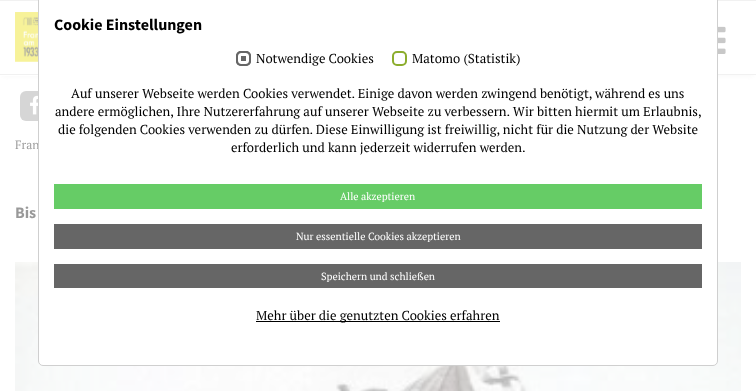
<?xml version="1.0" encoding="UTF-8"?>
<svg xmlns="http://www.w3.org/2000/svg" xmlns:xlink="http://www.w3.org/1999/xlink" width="756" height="391">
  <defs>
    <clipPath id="clip1"><rect x="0" y="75" width="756" height="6" /></clipPath>
  </defs>
  <rect width="100%" height="100%" fill="#ffffff" />
  <g clip-path="url(#clip1)">
    <rect x="3" y="7" width="750" height="69" fill="#ececec" filter="blur(2.5px)" />
  </g>
  <rect width="756" height="1" fill="#dddddd" />
  <rect y="74" width="756" height="1" fill="#dddddd" />
  <image x="15" y="12" width="23" height="50" xlink:href="image1.png" />
  <image x="718" y="26" width="8" height="28" xlink:href="image2.png" />
  <rect y="75" width="38" height="1" fill="#ffffff" />
  <rect x="20" y="91" width="30" height="30" rx="6" fill="#999999" />
  <image x="30" y="95" width="8" height="20" xlink:href="image3.png" />
  <image x="15" y="262" width="726" height="129" xlink:href="image4.png" />
  <text x="15" y="149" style="font-family: PT Serif; font-size: 12px; fill: #000000">Fran</text>
  <text x="15" y="218" style="font-family: Source Sans Pro; font-size: 16px; font-weight: bold; fill: #000000">Bis</text>
  <rect y="-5" width="756" height="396" rx="5" fill="#ffffff" fill-opacity="0.6" />
  <rect x="38.5" y="-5.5" width="679" height="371" rx="4.5" fill="#ffffff" stroke="#cfcfcf" />
  <rect x="256" y="321" width="244" height="1" fill="#000000" />
  <text x="256" y="320" style="font-family: PT Serif; font-size: 13px; fill: #000000">Mehr über die genutzten Cookies erfahren</text>
  <rect x="54" y="264" width="648" height="24" fill="#666666" />
  <text x="321" y="280" style="font-family: PT Serif; font-size: 10.4px; fill: #ffffff">Speichern und schließen</text>
  <rect x="54" y="224" width="648" height="25" fill="#666666" />
  <text x="296" y="240" style="font-family: PT Serif; font-size: 10.4px; fill: #ffffff">Nur essentielle Cookies akzeptieren</text>
  <rect x="54" y="184" width="648" height="25" fill="#66cc66" />
  <text x="340" y="200" style="font-family: PT Serif; font-size: 10.4px; fill: #ffffff">Alle akzeptieren</text>
  <text x="231" y="152" style="font-family: PT Serif; font-size: 13px; fill: #000000">erforderlich und kann jederzeit widerrufen werden.</text>
  <text x="58" y="134" style="font-family: PT Serif; font-size: 13px; fill: #000000">die folgenden Cookies verwenden zu dürfen. Diese Einwilligung ist freiwillig, nicht für die Nutzung der Website</text>
  <text x="55" y="116" style="font-family: PT Serif; font-size: 13px; fill: #000000">andere ermöglichen, Ihre Nutzererfahrung auf unserer Webseite zu verbessern. Wir bitten hiermit um Erlaubnis,</text>
  <text x="71" y="98" style="font-family: PT Serif; font-size: 13px; fill: #000000">Auf unserer Webseite werden Cookies verwendet. Einige davon werden zwingend benötigt, während es uns</text>
  <text x="412" y="63" style="font-family: PT Serif; font-size: 13px; fill: #000000">Matomo (Statistik)</text>
  <rect x="393" y="52" width="13" height="13" rx="4" fill="none" stroke="#8cad2d" stroke-width="2" />
  <text x="256" y="63" style="font-family: PT Serif; font-size: 13px; fill: #000000">Notwendige Cookies</text>
  <rect x="236" y="51" width="15" height="15" rx="5" fill="#666666" />
  <rect x="239.5" y="54.5" width="8" height="8" rx="1.5" fill="none" stroke="#ffffff" stroke-width="3" />
  <rect x="237" y="52" width="13" height="13" rx="4" fill="none" stroke="#666666" stroke-width="2" />
  <text x="54" y="30" style="font-family: Source Sans Pro; font-size: 16px; font-weight: bold; fill: #000000">Cookie Einstellungen</text>
</svg>
